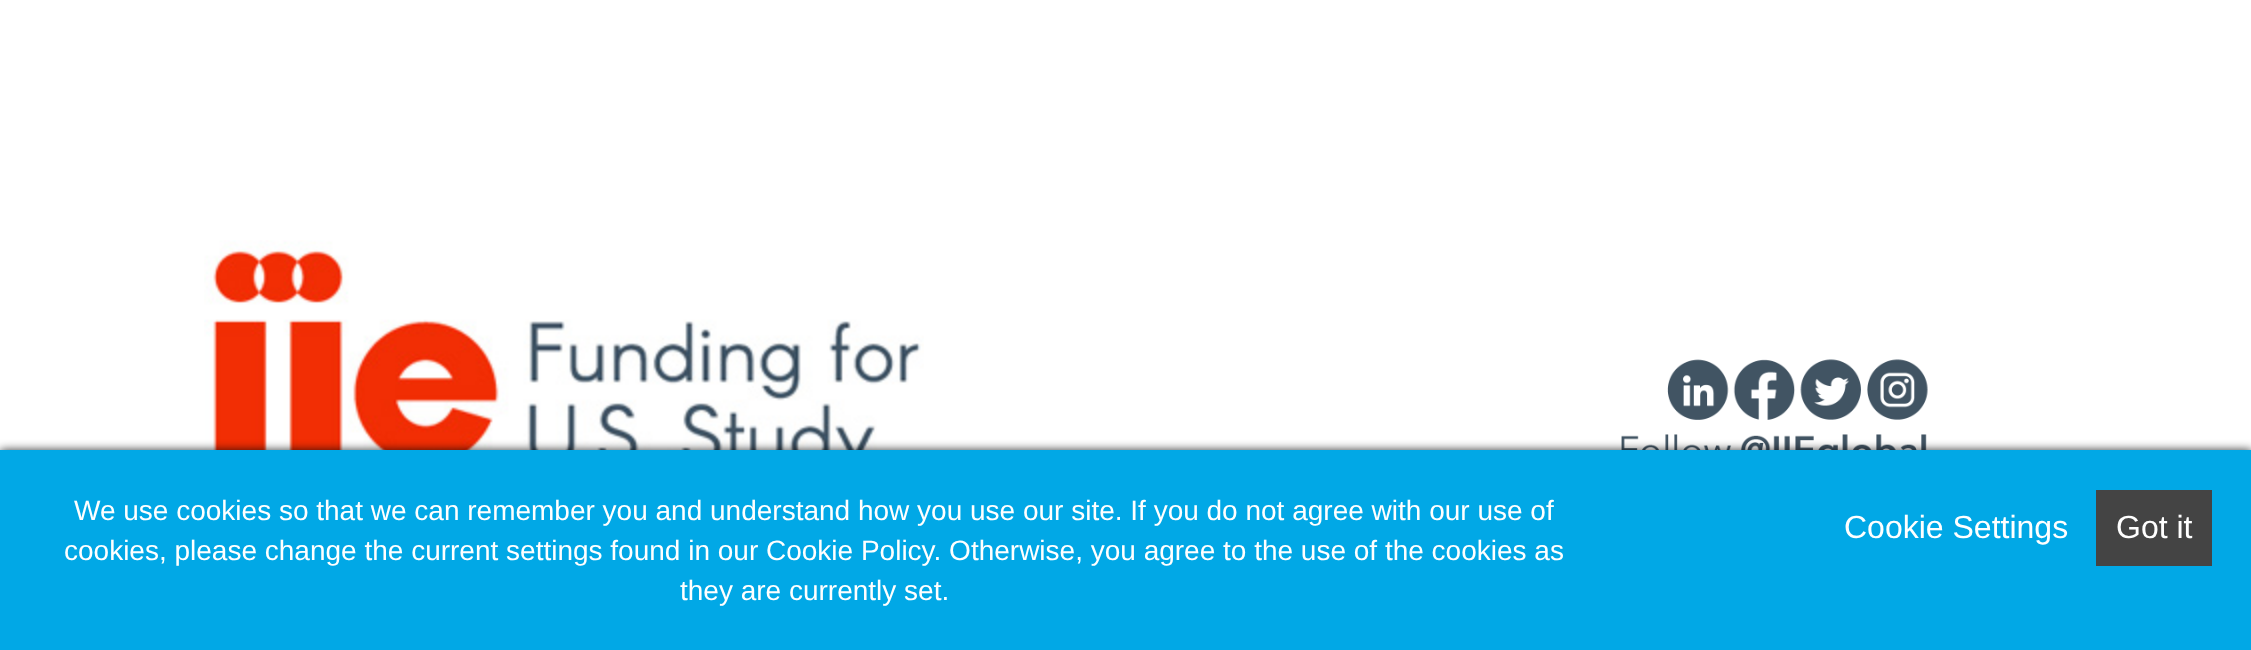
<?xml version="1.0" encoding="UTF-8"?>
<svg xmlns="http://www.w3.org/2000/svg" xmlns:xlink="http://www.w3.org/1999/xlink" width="2251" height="650">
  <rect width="100%" height="100%" fill="#ffffff" />
  <image x="204" y="240" width="720" height="210" xlink:href="image1.png" />
  <image x="1621" y="359" width="307" height="91" xlink:href="image2.png" />
  <rect y="450" width="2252" height="200" fill="#000000" fill-opacity="0.8" filter="blur(5px)" />
  <rect y="450" width="2251" height="200" fill="#01a8e6" />
  <rect x="2096" y="490" width="116" height="76" fill="#444444" />
  <text x="74" y="520" style="font-family: Liberation Sans; font-size: 28px; fill: #ffffff">We use cookies so that we can remember you and understand how you use our site. If you do not agree with our use of</text>
  <text x="64" y="560" style="font-family: Liberation Sans; font-size: 28px; fill: #ffffff">cookies, please change the current settings found in our Cookie Policy. Otherwise, you agree to the use of the cookies as</text>
  <text x="680" y="600" style="font-family: Liberation Sans; font-size: 28px; fill: #ffffff">they are currently set.</text>
  <text x="1844" y="538" style="font-family: Liberation Sans; font-size: 32px; fill: #ffffff">Cookie Settings</text>
  <text x="2116" y="538" style="font-family: Liberation Sans; font-size: 32px; fill: #ffffff">Got it</text>
</svg>
